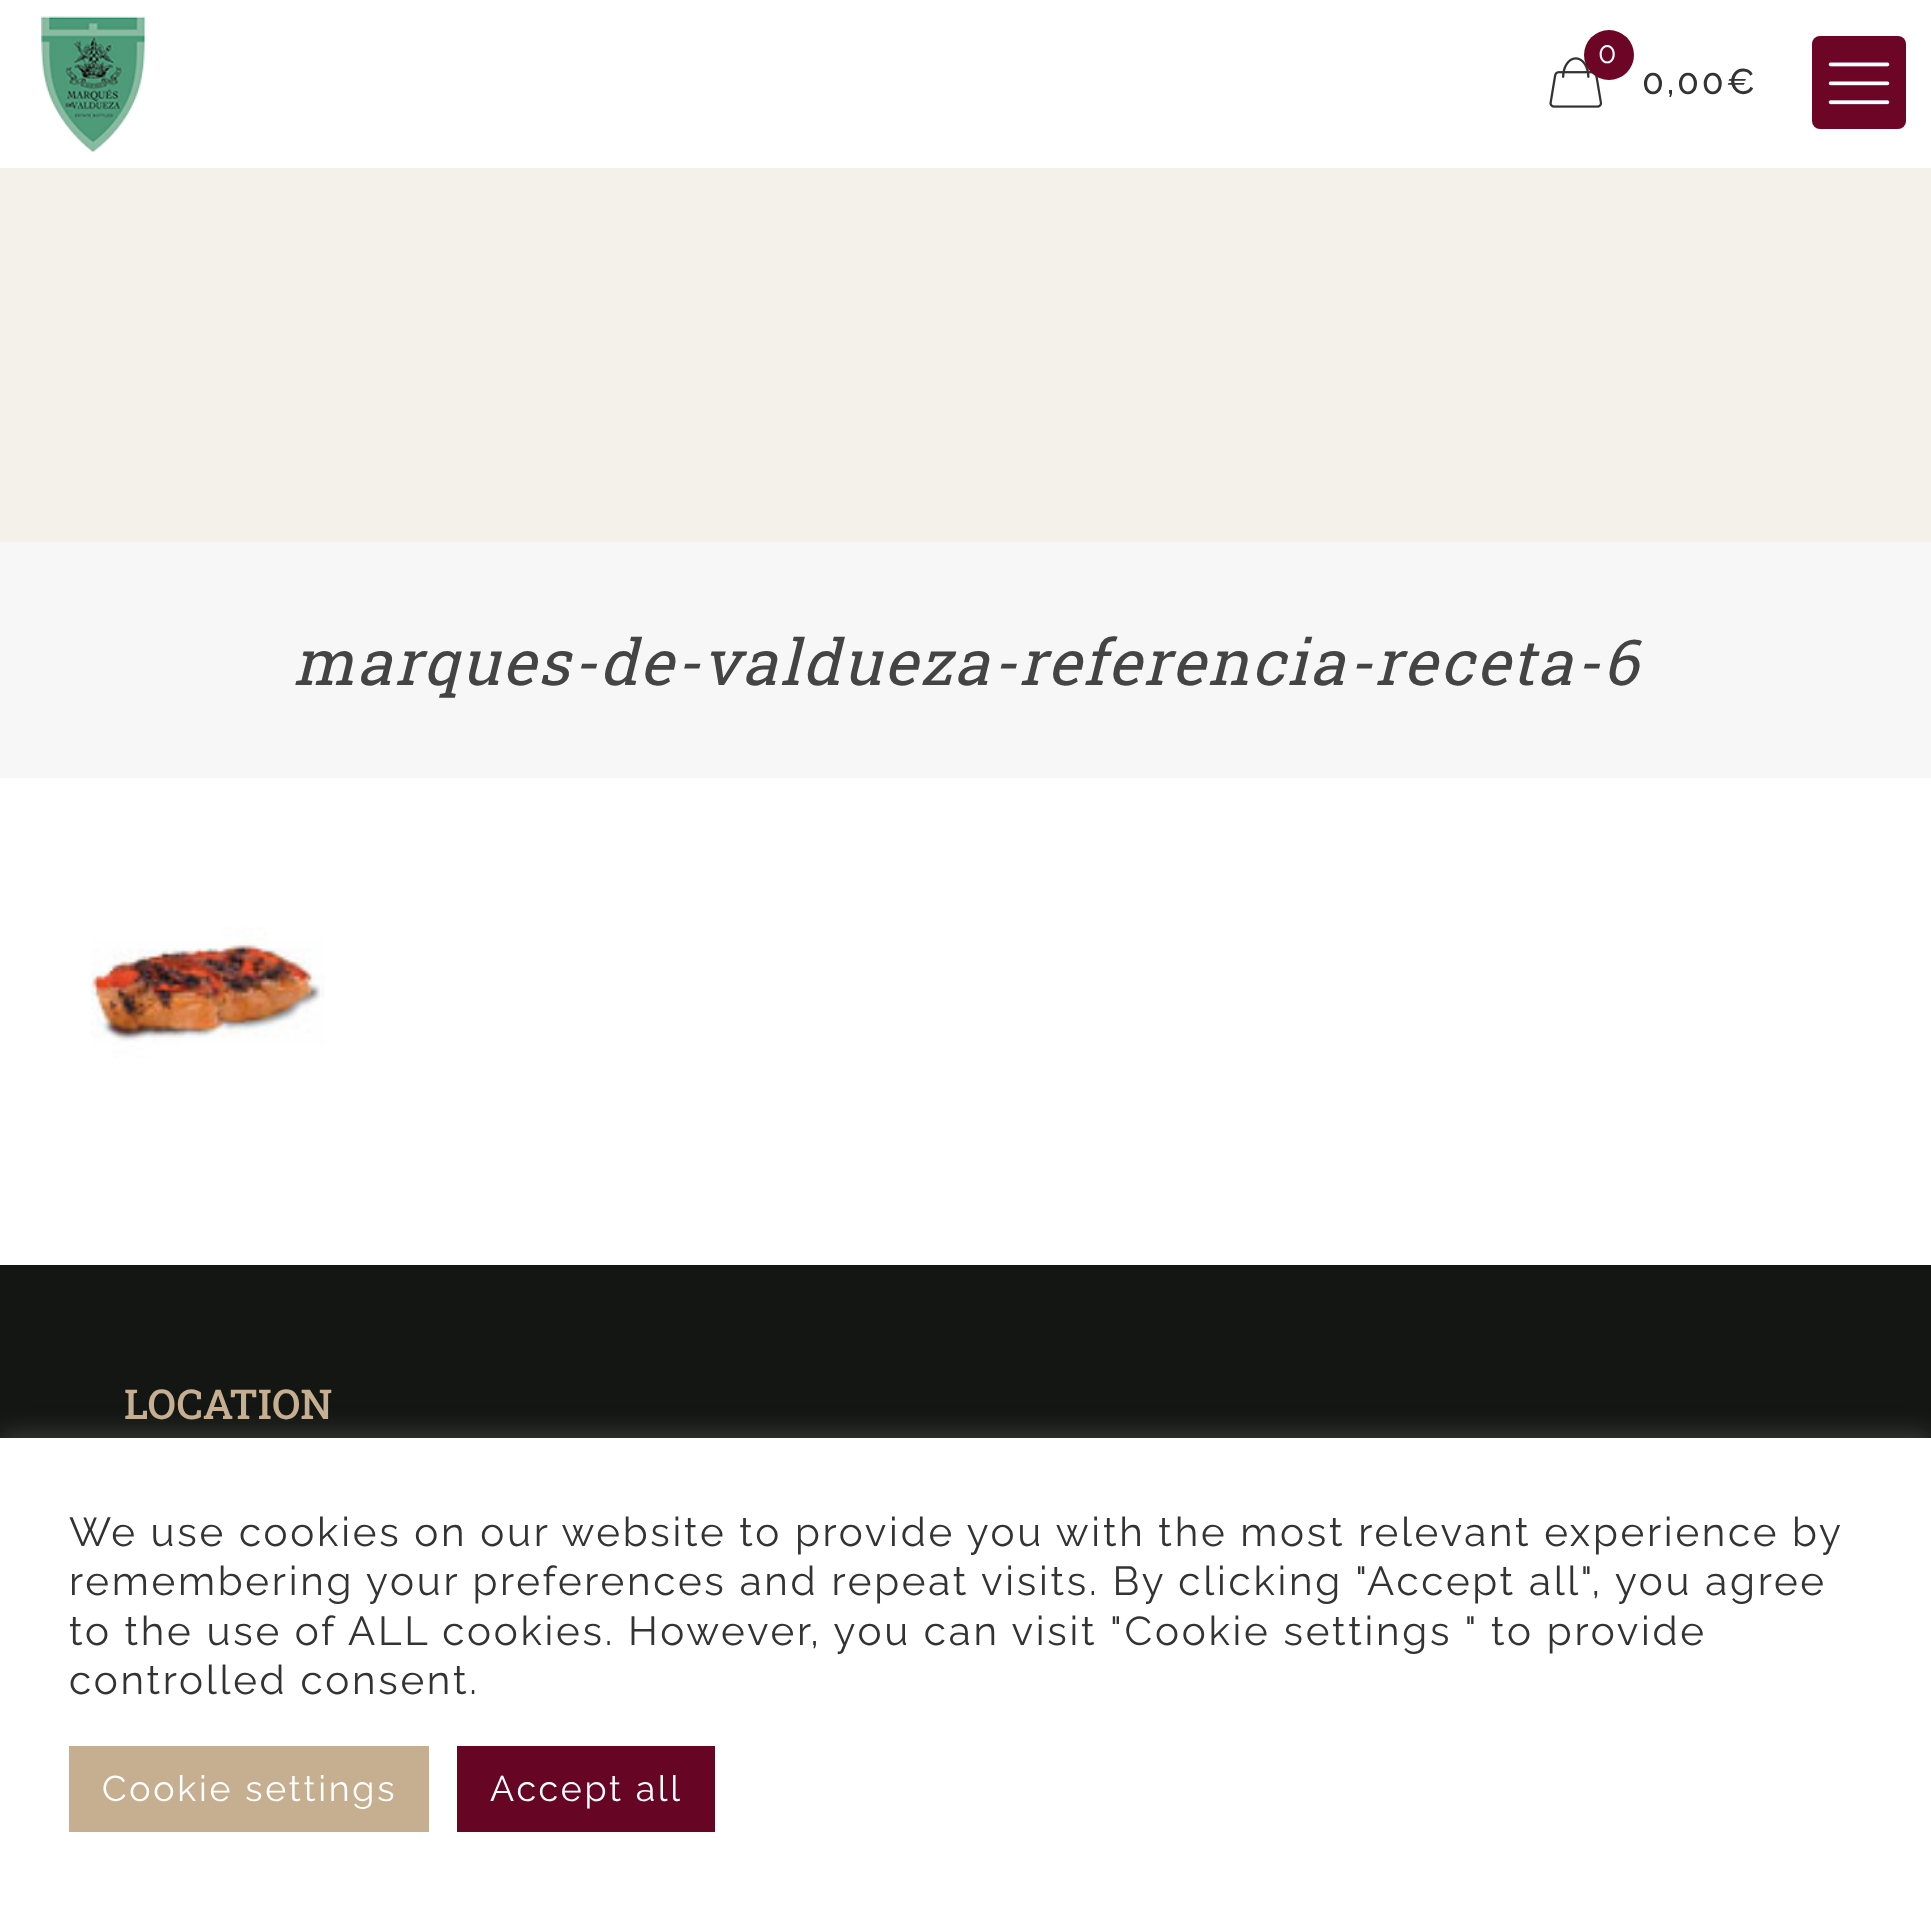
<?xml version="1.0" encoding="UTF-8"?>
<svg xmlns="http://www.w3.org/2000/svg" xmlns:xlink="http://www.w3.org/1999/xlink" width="1931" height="1913">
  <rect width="100%" height="100%" fill="#ffffff" />
  <rect y="168" width="1931" height="374" fill="#f4f0ea" />
  <image x="41" y="16" width="105" height="137" xlink:href="image1.png" />
  <rect x="1812" y="36" width="94" height="93" rx="8" fill="#6d0527" />
  <image x="1828" y="62" width="62" height="43" xlink:href="image2.png" />
  <image x="1549" y="57" width="54" height="51" xlink:href="image3.png" />
  <circle cx="1609" cy="55" r="25" fill="#6d0527" />
  <rect y="542" width="1931" height="236" fill="#f7f7f7" />
  <image x="90" y="927" width="235" height="131" xlink:href="image4.png" />
  <rect y="1265" width="1931" height="173" fill="#131613" />
  <rect y="1436" width="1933" height="475" fill="#acabab" fill-opacity="0.3" filter="blur(14px)" />
  <rect y="1438" width="1931" height="475" fill="#ffffff" />
  <rect x="69" y="1746" width="360" height="86" fill="#c6af90" />
  <rect x="457" y="1746" width="258" height="86" fill="#670525" />
  <text x="1598" y="63" style="font-family: Raleway; font-size: 30px; letter-spacing: 2.75px; fill: #ffffff">0</text>
  <text x="1642" y="94" style="font-family: Raleway; font-size: 35.75px; font-weight: 500; letter-spacing: 2.75px; fill: #333333">0,00€</text>
  <text x="293" y="685" style="font-family: Roboto Slab; font-size: 63.25px; font-style: italic; letter-spacing: 2.75px; fill: #444444">marques-de-valdueza-referencia-receta-6</text>
  <text x="124" y="1419" style="font-family: Roboto Slab; font-size: 41.25px; font-weight: 500; fill: #c6af90">LOCATION</text>
  <text x="69" y="1546" word-spacing="-0.1" style="font-family: Raleway; font-size: 40.35px; letter-spacing: 2.75px; fill: #333333">We use cookies on our website to provide you with the most relevant experience by</text>
  <text x="69" y="1595" style="font-family: Raleway; font-size: 40.35px; letter-spacing: 2.75px; fill: #333333">remembering your preferences and repeat visits. By clicking "Accept all", you agree</text>
  <text x="69" y="1645" word-spacing="-0.1" style="font-family: Raleway; font-size: 40.35px; letter-spacing: 2.75px; fill: #333333">to the use of ALL cookies. However, you can visit</text>
  <text x="1110" y="1645" style="font-family: Raleway; font-size: 40.35px; letter-spacing: 2.75px; fill: #333333">"Cookie settings " to provide</text>
  <text x="69" y="1694" style="font-family: Raleway; font-size: 40.35px; letter-spacing: 2.75px; fill: #333333">controlled consent.</text>
  <text x="102" y="1801" style="font-family: Raleway; font-size: 35.75px; letter-spacing: 2.75px; fill: #ffffff">Cookie settings</text>
  <text x="490" y="1801" style="font-family: Raleway; font-size: 35.75px; letter-spacing: 2.75px; fill: #ffffff">Accept all</text>
</svg>
